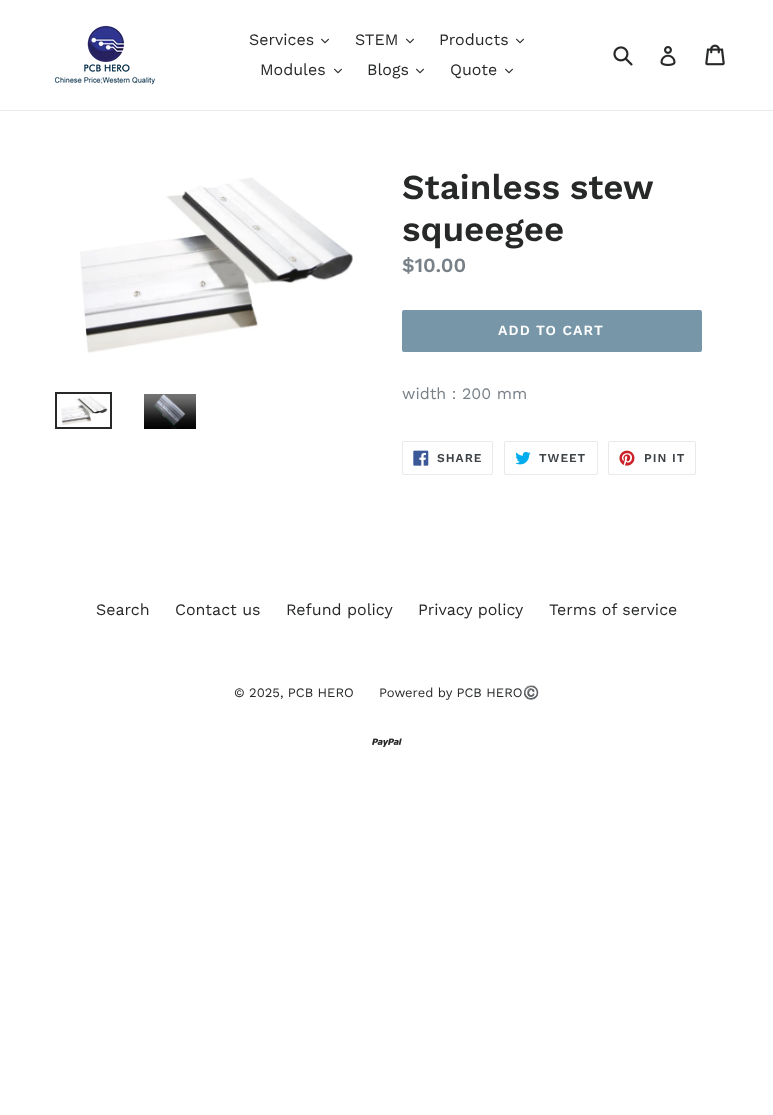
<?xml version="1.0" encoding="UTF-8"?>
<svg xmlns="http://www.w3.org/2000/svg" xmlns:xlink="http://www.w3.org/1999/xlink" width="773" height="1115">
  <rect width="100%" height="100%" fill="#ffffff" />
  <rect y="110" width="773" height="1" fill="#e8e9eb" />
  <image x="55" y="25" width="100" height="60" xlink:href="image1.png" />
  <image x="321" y="38" width="8" height="6" xlink:href="image2.png" />
  <image x="406" y="38" width="8" height="6" xlink:href="image2.png" />
  <image x="516" y="38" width="8" height="6" xlink:href="image2.png" />
  <image x="334" y="68" width="8" height="6" xlink:href="image2.png" />
  <image x="416" y="68" width="8" height="6" xlink:href="image2.png" />
  <image x="505" y="68" width="8" height="6" xlink:href="image2.png" />
  <image x="613" y="46" width="20" height="20" xlink:href="image3.png" />
  <image x="660" y="46" width="16" height="20" xlink:href="image4.png" />
  <image x="705" y="44" width="20" height="22" xlink:href="image5.png" />
  <image x="80" y="177" width="273" height="176" xlink:href="image6.png" />
  <rect x="56" y="393" width="55" height="35" fill="none" stroke="#272828" stroke-width="2" />
  <image x="61" y="396" width="47" height="30" xlink:href="image7.png" />
  <image x="144" y="394" width="52" height="35" xlink:href="image8.png" />
  <rect x="402" y="310" width="300" height="42" rx="2" fill="#7796a8" />
  <rect x="402.5" y="441.5" width="90" height="33" rx="1.5" fill="none" stroke="#e8e9eb" />
  <image x="413" y="450" width="16" height="16" xlink:href="image9.png" />
  <rect x="504.5" y="441.5" width="93" height="33" rx="1.5" fill="none" stroke="#e8e9eb" />
  <image x="515" y="451" width="16" height="14" xlink:href="image10.png" />
  <rect x="608.5" y="441.5" width="87" height="33" rx="1.5" fill="none" stroke="#e8e9eb" />
  <image x="619" y="450" width="16" height="16" xlink:href="image11.png" />
  <image x="372" y="738" width="30" height="9" xlink:href="image12.png" />
  <text x="249" y="45" style="font-family: Work Sans; font-size: 16px; fill: #272828">Services</text>
  <text x="355" y="45" style="font-family: Work Sans; font-size: 16px; fill: #272828">STEM</text>
  <text x="439" y="45" style="font-family: Work Sans; font-size: 16px; fill: #272828">Products</text>
  <text x="260" y="75" style="font-family: Work Sans; font-size: 16px; fill: #272828">Modules</text>
  <text x="367" y="75" style="font-family: Work Sans; font-size: 16px; fill: #272828">Blogs</text>
  <text x="450" y="75" style="font-family: Work Sans; font-size: 16px; fill: #272828">Quote</text>
  <text x="402" y="199" word-spacing="-1" style="font-family: Work Sans; font-size: 35px; font-weight: 600; fill: #272828">Stainless stew</text>
  <text x="402" y="241" style="font-family: Work Sans; font-size: 35px; font-weight: 600; fill: #272828">squeegee</text>
  <text x="402" y="272" style="font-family: Work Sans; font-size: 20px; font-weight: 600; fill: #788188">$10.00</text>
  <text x="498" y="335" style="font-family: Work Sans; font-size: 14px; font-weight: 600; letter-spacing: 1.1px; fill: #ffffff">ADD TO CART</text>
  <text x="402" y="399" style="font-family: Work Sans; font-size: 16px; fill: #788188">width</text>
  <text x="446" y="399" style="font-family: WenQuanYi Zen Hei; font-size: 16px; font-weight: 500; fill: #788188">：</text>
  <text x="462" y="399" style="font-family: Work Sans; font-size: 16px; fill: #788188">200 mm</text>
  <text x="437" y="462" style="font-family: Work Sans; font-size: 12px; font-weight: 600; letter-spacing: 1px; fill: #3d4246">SHARE</text>
  <text x="539" y="462" style="font-family: Work Sans; font-size: 12px; font-weight: 600; letter-spacing: 1px; fill: #3d4246">TWEET</text>
  <text x="644" y="462" style="font-family: Work Sans; font-size: 12px; font-weight: 600; letter-spacing: 1px; fill: #3d4246">PIN IT</text>
  <text x="96" y="615" style="font-family: Work Sans; font-size: 16px; fill: #272828">Search</text>
  <text x="175" y="615" style="font-family: Work Sans; font-size: 16px; fill: #272828">Contact us</text>
  <text x="286" y="615" style="font-family: Work Sans; font-size: 16px; fill: #272828">Refund policy</text>
  <text x="418" y="615" style="font-family: Work Sans; font-size: 16px; fill: #272828">Privacy policy</text>
  <text x="549" y="615" style="font-family: Work Sans; font-size: 16px; fill: #272828">Terms of service</text>
  <text x="234" y="697" style="font-family: Work Sans; font-size: 13px; fill: #272828">© 2025, PCB HERO</text>
  <text x="379" y="697" style="font-family: Work Sans; font-size: 13px; fill: #272828">Powered by PCB HERO</text>
  <text x="523" y="697" style="font-family: Noto Color Emoji; font-size: 13px; fill: #272828">©️</text>
</svg>
